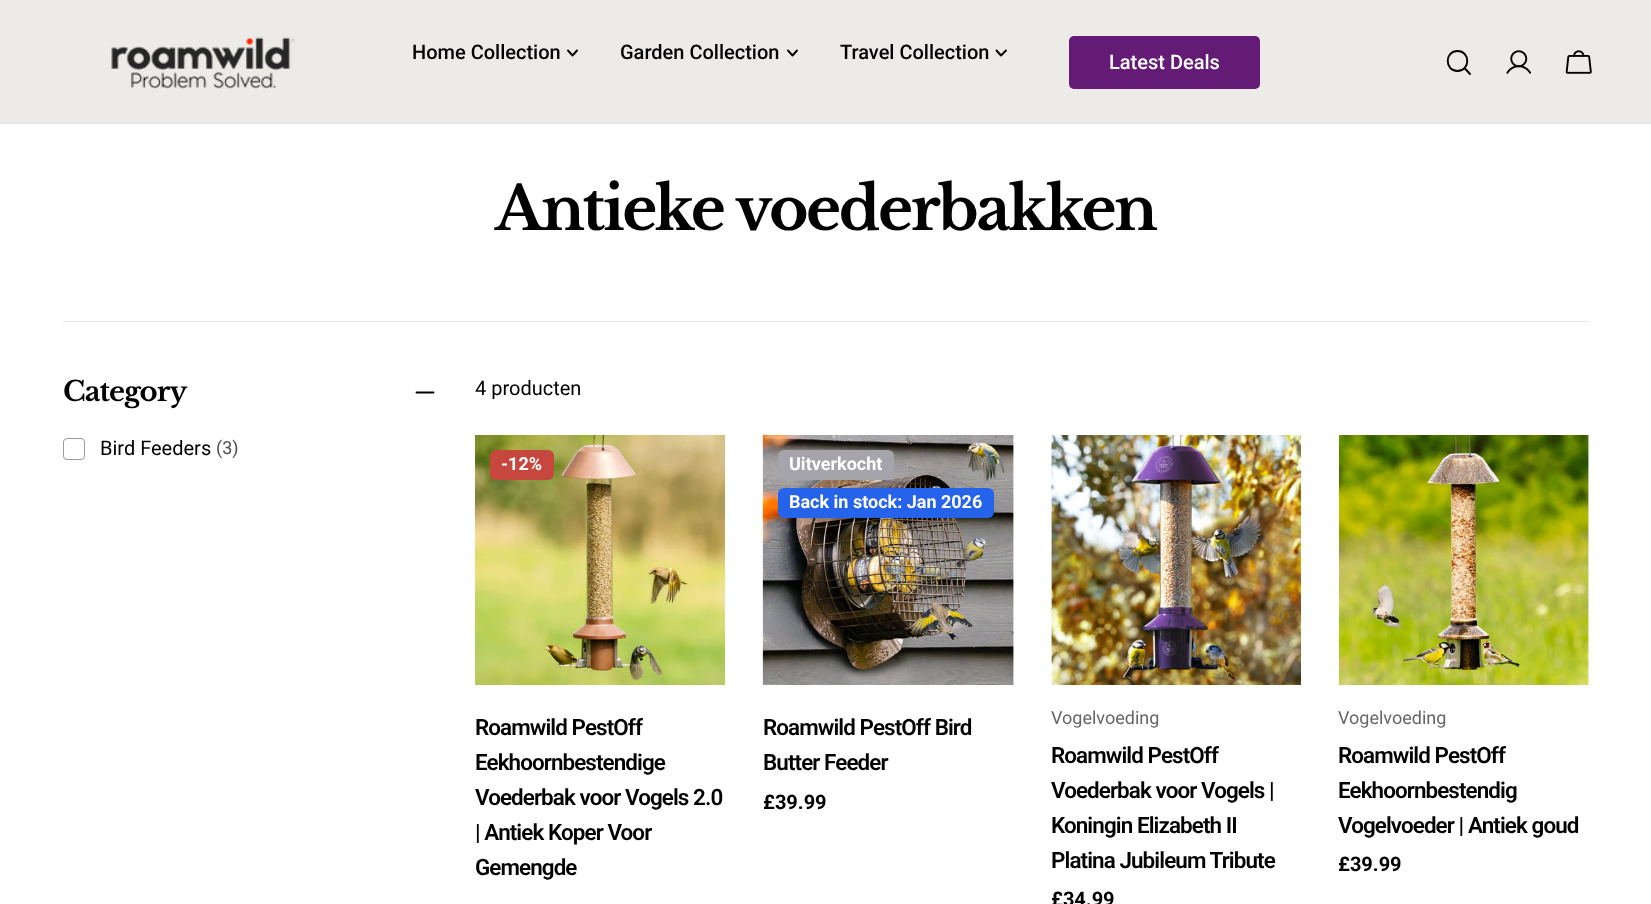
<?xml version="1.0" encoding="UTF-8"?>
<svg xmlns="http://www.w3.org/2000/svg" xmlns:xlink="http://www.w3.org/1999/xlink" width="1651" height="904">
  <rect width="100%" height="100%" fill="#ffffff" />
  <rect y="123" width="1651" height="1" fill="#e6e6e6" />
  <rect width="1651" height="123" fill="#edebe7" />
  <image x="111" y="37" width="184" height="52" xlink:href="image1.png" />
  <path d="M 577 50.5 l -4.5 5 l -4.5 -5" fill="none" stroke="#000000" stroke-width="1.9" stroke-linecap="round" stroke-linejoin="round" />
  <path d="M 797 50.5 l -4.5 5 l -4.5 -5" fill="none" stroke="#000000" stroke-width="1.9" stroke-linecap="round" stroke-linejoin="round" />
  <path d="M 1006 50.5 l -5 5 l -4.5 -5" fill="none" stroke="#000000" stroke-width="1.9" stroke-linecap="round" stroke-linejoin="round" />
  <rect x="1069" y="36" width="191" height="53" rx="5" fill="#641b76" />
  <path d="M 1457.5 71 c 13 0 13 -20 0 -20 c -13 0 -13 20 0 20 z m 7 -3 l 5.5 6" fill="none" stroke="#000000" stroke-width="1.9" stroke-linecap="round" stroke-linejoin="round" />
  <image x="1506" y="50" width="25" height="24" xlink:href="image2.png" />
  <image x="1565" y="50" width="27" height="24" xlink:href="image3.png" />
  <rect x="63" y="321" width="1526" height="1" fill="#e6e6e6" />
  <path d="M 416.5 392.5 h 17 m -17 0 h 17" fill="none" stroke="#000000" stroke-width="1.9" stroke-linecap="round" stroke-linejoin="round" />
  <rect x="63.5" y="438.5" width="21" height="21" rx="3.5" fill="none" stroke="#999999" />
  <image x="475" y="435" width="250" height="250" xlink:href="image4.png" />
  <rect x="490" y="450" width="64" height="30" rx="6" fill="#c6473d" />
  <image x="762" y="435" width="252" height="250" xlink:href="image5.png" />
  <rect x="778" y="450" width="116" height="30" rx="6" fill="#a5a4ab" />
  <rect x="778" y="488" width="216" height="30" rx="6" fill="#2563eb" />
  <image x="1051" y="435" width="250" height="250" xlink:href="image6.png" />
  <image x="1339" y="435" width="250" height="250" xlink:href="image7.png" />
  <text x="412" y="59" style="font-family: Roboto; font-size: 20px; font-weight: 500; fill: #000000">Home Collection</text>
  <text x="620" y="59" style="font-family: Roboto; font-size: 20px; font-weight: 500; fill: #000000">Garden Collection</text>
  <text x="840" y="59" style="font-family: Roboto; font-size: 20px; font-weight: 500; fill: #000000">Travel Collection</text>
  <text x="1109" y="69" style="font-family: Roboto; font-size: 20px; font-weight: 500; fill: #ffffff">Latest Deals</text>
  <text x="495" y="230" style="font-family: Libre Baskerville; font-size: 60px; font-weight: bold; letter-spacing: -2.4px; fill: #000000">Antieke voederbakken</text>
  <text x="63" y="401" style="font-family: Libre Baskerville; font-size: 27.5px; font-weight: bold; letter-spacing: -1px; fill: #000000">Category</text>
  <text x="100" y="455" style="font-family: Roboto; font-size: 20px; fill: #000000">Bird Feeders</text>
  <text x="216" y="454" style="font-family: Roboto; font-size: 18px; fill: #4f4f4f">(3)</text>
  <text x="475" y="395" style="font-family: Roboto; font-size: 20px; fill: #000000">4 producten</text>
  <text x="501" y="470" style="font-family: Roboto; font-size: 18px; font-weight: bold; fill: #ffffff">-12%</text>
  <text x="475" y="735" style="font-family: Roboto; font-size: 22.4px; font-weight: 600; letter-spacing: -0.9px; fill: #000000">Roamwild PestOff</text>
  <text x="475" y="770" style="font-family: Roboto; font-size: 22.4px; font-weight: 600; letter-spacing: -0.9px; fill: #000000">Eekhoornbestendige</text>
  <text x="475" y="805" style="font-family: Roboto; font-size: 22.4px; font-weight: 600; letter-spacing: -0.9px; fill: #000000">Voederbak voor Vogels 2.0</text>
  <text x="475" y="840" style="font-family: Roboto; font-size: 22.4px; font-weight: 600; letter-spacing: -0.9px; fill: #000000">| Antiek Koper Voor</text>
  <text x="475" y="875" style="font-family: Roboto; font-size: 22.4px; font-weight: 600; letter-spacing: -0.9px; fill: #000000">Gemengde</text>
  <text x="789" y="470" style="font-family: Roboto; font-size: 18px; font-weight: bold; fill: #ffffff">Uitverkocht</text>
  <text x="789" y="508" style="font-family: Roboto; font-size: 18px; font-weight: bold; fill: #ffffff">Back in stock: Jan 2026</text>
  <text x="763" y="735" style="font-family: Roboto; font-size: 22.4px; font-weight: 600; letter-spacing: -0.9px; fill: #000000">Roamwild PestOff Bird</text>
  <text x="763" y="770" style="font-family: Roboto; font-size: 22.4px; font-weight: 600; letter-spacing: -0.9px; fill: #000000">Butter Feeder</text>
  <text x="763" y="809" style="font-family: Roboto; font-size: 20px; font-weight: bold; fill: #000000">£39.99</text>
  <text x="1051" y="724" style="font-family: Roboto; font-size: 18px; fill: #666666">Vogelvoeding</text>
  <text x="1051" y="763" style="font-family: Roboto; font-size: 22.4px; font-weight: 600; letter-spacing: -0.9px; fill: #000000">Roamwild PestOff</text>
  <text x="1051" y="798" style="font-family: Roboto; font-size: 22.4px; font-weight: 600; letter-spacing: -0.9px; fill: #000000">Voederbak voor Vogels |</text>
  <text x="1051" y="833" style="font-family: Roboto; font-size: 22.4px; font-weight: 600; letter-spacing: -0.9px; fill: #000000">Koningin Elizabeth II</text>
  <text x="1051" y="868" style="font-family: Roboto; font-size: 22.4px; font-weight: 600; letter-spacing: -0.9px; fill: #000000">Platina Jubileum Tribute</text>
  <text x="1051" y="906" style="font-family: Roboto; font-size: 20px; font-weight: bold; fill: #000000">£34.99</text>
  <text x="1338" y="724" style="font-family: Roboto; font-size: 18px; fill: #666666">Vogelvoeding</text>
  <text x="1338" y="763" style="font-family: Roboto; font-size: 22.4px; font-weight: 600; letter-spacing: -0.9px; fill: #000000">Roamwild PestOff</text>
  <text x="1338" y="798" style="font-family: Roboto; font-size: 22.4px; font-weight: 600; letter-spacing: -0.9px; fill: #000000">Eekhoornbestendig</text>
  <text x="1338" y="833" style="font-family: Roboto; font-size: 22.4px; font-weight: 600; letter-spacing: -0.9px; fill: #000000">Vogelvoeder | Antiek goud</text>
  <text x="1338" y="871" style="font-family: Roboto; font-size: 20px; font-weight: bold; fill: #000000">£39.99</text>
</svg>
